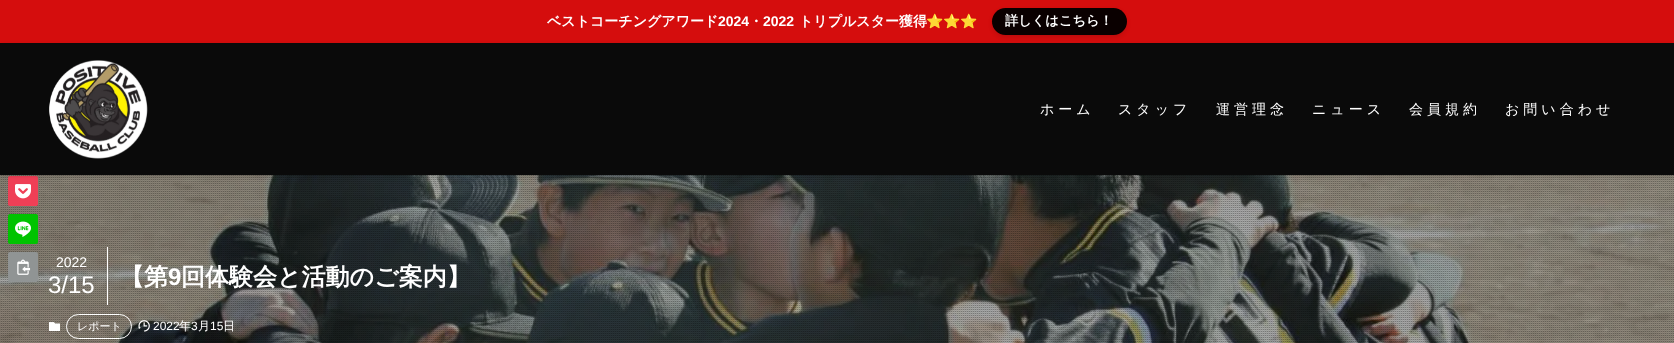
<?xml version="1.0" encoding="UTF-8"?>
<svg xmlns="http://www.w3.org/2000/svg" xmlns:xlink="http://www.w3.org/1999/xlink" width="1674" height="343">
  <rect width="100%" height="100%" fill="#d50d0d" />
  <rect x="992" y="10" width="135" height="27" rx="13.5" fill="#000000" fill-opacity="0.12" filter="blur(2px)" />
  <rect x="992" y="8" width="135" height="27" rx="13.5" fill="#0a0000" />
  <image x="0" y="175" width="1674" height="168" xlink:href="image5.png" />
  <image x="0" y="175" width="1674" height="168" xlink:href="image6.png" />
  <rect x="12" y="184" width="22" height="22" fill="#000000" fill-opacity="0.1" filter="blur(2px)" />
  <rect x="8" y="176" width="30" height="30" rx="2" fill="#ef3f56" />
  <rect y="44" width="1674" height="132" fill="#000000" fill-opacity="0.12" filter="blur(2px)" />
  <rect y="43" width="1674" height="132" fill="#0a0a0a" />
  <image x="49" y="60" width="99" height="99" xlink:href="image1.png" />
  <image x="15" y="184" width="16" height="15" xlink:href="image2.png" />
  <rect x="12" y="222" width="22" height="22" fill="#000000" fill-opacity="0.1" filter="blur(2px)" />
  <rect x="8" y="214" width="30" height="30" rx="2" fill="#00c300" />
  <image x="15" y="221" width="16" height="16" xlink:href="image3.png" />
  <rect x="12" y="260" width="22" height="22" fill="#000000" fill-opacity="0.1" filter="blur(2px)" />
  <rect x="8" y="252" width="30" height="30" rx="2" fill="#909494" />
  <image x="17" y="259" width="14" height="16" xlink:href="image4.png" />
  <rect x="107" y="247" width="1" height="58" fill="#ffffff" />
  <image x="49" y="322" width="11" height="9" xlink:href="image7.png" />
  <rect x="66.5" y="314.5" width="65" height="24" rx="12" fill="none" stroke="#ffffff" />
  <image x="138" y="320" width="12" height="12" xlink:href="image8.png" />
  <text x="547" y="26" style="font-family: WenQuanYi Zen Hei; font-size: 14px; font-weight: bold; fill: #ffffff">ベストコーチングアワード</text>
  <text x="718" y="26" style="font-family: Liberation Sans; font-size: 14px; font-weight: bold; fill: #ffffff">2024</text>
  <text x="749" y="26" style="font-family: WenQuanYi Zen Hei; font-size: 14px; font-weight: bold; fill: #ffffff">・</text>
  <text x="763" y="26" style="font-family: Liberation Sans; font-size: 14px; font-weight: bold; fill: #ffffff">2022</text>
  <text x="799" y="26" style="font-family: WenQuanYi Zen Hei; font-size: 14px; font-weight: bold; fill: #ffffff">トリプルスター獲得</text>
  <text x="926" y="26" style="font-family: Noto Color Emoji; font-size: 14px; font-weight: bold; fill: #ffffff">⭐️⭐️⭐️</text>
  <text x="1005" y="25" style="font-family: WenQuanYi Zen Hei; font-size: 13.25px; font-weight: bold; fill: #ffffff">詳しくはこちら！</text>
  <text x="1040" y="114" style="font-family: WenQuanYi Zen Hei; font-size: 14px; font-weight: 500; letter-spacing: 4px; fill: #ffffff">ホーム</text>
  <text x="1118" y="114" style="font-family: WenQuanYi Zen Hei; font-size: 14px; font-weight: 500; letter-spacing: 4px; fill: #ffffff">スタッフ</text>
  <text x="1216" y="114" style="font-family: WenQuanYi Zen Hei; font-size: 14px; font-weight: 500; letter-spacing: 4px; fill: #ffffff">運営理念</text>
  <text x="1312" y="114" style="font-family: WenQuanYi Zen Hei; font-size: 14px; font-weight: 500; letter-spacing: 4px; fill: #ffffff">ニュース</text>
  <text x="1409" y="114" style="font-family: WenQuanYi Zen Hei; font-size: 14px; font-weight: 500; letter-spacing: 4px; fill: #ffffff">会員規約</text>
  <text x="1505" y="114" style="font-family: WenQuanYi Zen Hei; font-size: 14px; font-weight: 500; letter-spacing: 4px; fill: #ffffff">お問い合わせ</text>
  <text x="56" y="267" style="font-family: Liberation Sans; font-size: 14px; fill: #ffffff">2022</text>
  <text x="48" y="293" style="font-family: Liberation Sans; font-size: 24px; fill: #ffffff">3/15</text>
  <text x="120" y="285" style="font-family: WenQuanYi Zen Hei; font-size: 24px; font-weight: bold; fill: #ffffff">【第</text>
  <text x="168" y="285" style="font-family: Liberation Sans; font-size: 24px; font-weight: bold; fill: #ffffff">9</text>
  <text x="181" y="285" style="font-family: WenQuanYi Zen Hei; font-size: 24px; font-weight: bold; fill: #ffffff">回体験会と活動のご案内】</text>
  <text x="77" y="330" style="font-family: WenQuanYi Zen Hei; font-size: 11px; font-weight: 500; fill: #ffffff">レポート</text>
  <text x="153" y="330" style="font-family: Liberation Sans; font-size: 12px; fill: #ffffff">2022</text>
  <text x="179" y="330" style="font-family: WenQuanYi Zen Hei; font-size: 12px; font-weight: 500; fill: #ffffff">年</text>
  <text x="191" y="330" style="font-family: Liberation Sans; font-size: 12px; fill: #ffffff">3</text>
  <text x="198" y="330" style="font-family: WenQuanYi Zen Hei; font-size: 12px; font-weight: 500; fill: #ffffff">月</text>
  <text x="210" y="330" style="font-family: Liberation Sans; font-size: 12px; fill: #ffffff">15</text>
  <text x="223" y="330" style="font-family: WenQuanYi Zen Hei; font-size: 12px; font-weight: 500; fill: #ffffff">日</text>
</svg>
